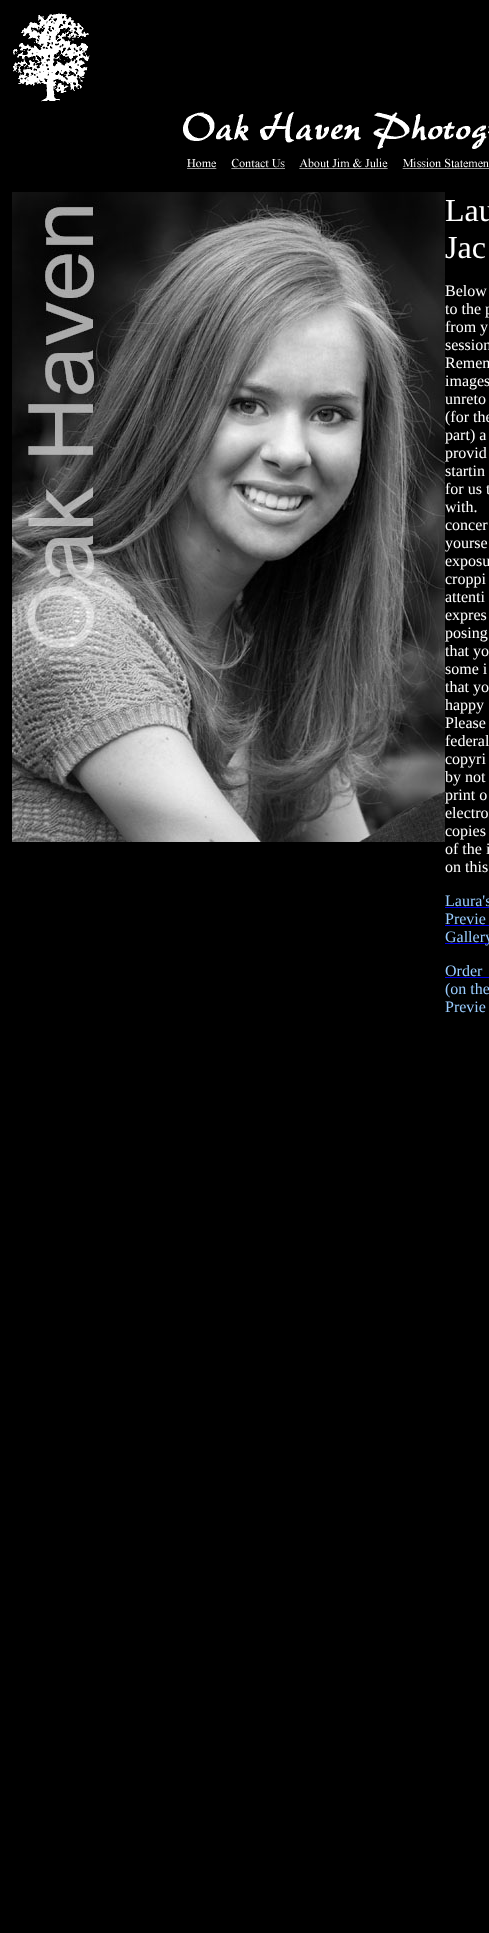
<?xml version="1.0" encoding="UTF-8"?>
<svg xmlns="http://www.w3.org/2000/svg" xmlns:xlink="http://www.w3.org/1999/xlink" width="489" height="1933">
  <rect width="100%" height="100%" fill="#000000" />
  <image x="13" y="13" width="77" height="89" xlink:href="image1.png" />
  <image x="183" y="112" width="306" height="37" xlink:href="image2.png" />
  <image x="187" y="158" width="302" height="11" xlink:href="image3.png" />
  <image x="12" y="192" width="433" height="650" xlink:href="image4.png" />
  <rect x="445" y="907" width="44" height="1" fill="#0000ee" />
  <rect x="445" y="925" width="44" height="1" fill="#0000ee" />
  <rect x="445" y="943" width="44" height="1" fill="#0000ee" />
  <rect x="445" y="977" width="44" height="1" fill="#0000ee" />
  <text x="445" y="221" style="font-family: Liberation Serif; font-size: 32px; fill: #ffffff">Lau</text>
  <text x="445" y="258" style="font-family: Liberation Serif; font-size: 32px; fill: #ffffff">Jac</text>
  <text x="445" y="296" style="font-family: Liberation Serif; font-size: 16px; fill: #ffffff">Below</text>
  <text x="445" y="314" style="font-family: Liberation Serif; font-size: 16px; fill: #ffffff">to the p</text>
  <text x="445" y="332" style="font-family: Liberation Serif; font-size: 16px; fill: #ffffff">from y</text>
  <text x="445" y="350" style="font-family: Liberation Serif; font-size: 16px; fill: #ffffff">session</text>
  <text x="445" y="368" style="font-family: Liberation Serif; font-size: 16px; fill: #ffffff">Remem</text>
  <text x="445" y="386" style="font-family: Liberation Serif; font-size: 16px; fill: #ffffff">images</text>
  <text x="445" y="404" style="font-family: Liberation Serif; font-size: 16px; fill: #ffffff">unreto</text>
  <text x="445" y="422" style="font-family: Liberation Serif; font-size: 16px; fill: #ffffff">(for the</text>
  <text x="445" y="440" style="font-family: Liberation Serif; font-size: 16px; fill: #ffffff">part) a</text>
  <text x="445" y="458" style="font-family: Liberation Serif; font-size: 16px; fill: #ffffff">provid</text>
  <text x="445" y="476" style="font-family: Liberation Serif; font-size: 16px; fill: #ffffff">startin</text>
  <text x="445" y="494" style="font-family: Liberation Serif; font-size: 16px; fill: #ffffff">for us t</text>
  <text x="445" y="512" style="font-family: Liberation Serif; font-size: 16px; fill: #ffffff">with.</text>
  <text x="445" y="530" style="font-family: Liberation Serif; font-size: 16px; fill: #ffffff">concer</text>
  <text x="445" y="548" style="font-family: Liberation Serif; font-size: 16px; fill: #ffffff">yourse</text>
  <text x="445" y="566" style="font-family: Liberation Serif; font-size: 16px; fill: #ffffff">exposu</text>
  <text x="445" y="584" style="font-family: Liberation Serif; font-size: 16px; fill: #ffffff">croppi</text>
  <text x="445" y="602" style="font-family: Liberation Serif; font-size: 16px; fill: #ffffff">attenti</text>
  <text x="445" y="620" style="font-family: Liberation Serif; font-size: 16px; fill: #ffffff">expres</text>
  <text x="445" y="638" style="font-family: Liberation Serif; font-size: 16px; fill: #ffffff">posing</text>
  <text x="445" y="656" style="font-family: Liberation Serif; font-size: 16px; fill: #ffffff">that yo</text>
  <text x="445" y="674" style="font-family: Liberation Serif; font-size: 16px; fill: #ffffff">some i</text>
  <text x="445" y="692" style="font-family: Liberation Serif; font-size: 16px; fill: #ffffff">that yo</text>
  <text x="445" y="710" style="font-family: Liberation Serif; font-size: 16px; fill: #ffffff">happy</text>
  <text x="445" y="728" style="font-family: Liberation Serif; font-size: 16px; fill: #ffffff">Please</text>
  <text x="445" y="746" style="font-family: Liberation Serif; font-size: 16px; fill: #ffffff">federal</text>
  <text x="445" y="764" style="font-family: Liberation Serif; font-size: 16px; fill: #ffffff">copyri</text>
  <text x="445" y="782" style="font-family: Liberation Serif; font-size: 16px; fill: #ffffff">by not</text>
  <text x="445" y="800" style="font-family: Liberation Serif; font-size: 16px; fill: #ffffff">print o</text>
  <text x="445" y="818" style="font-family: Liberation Serif; font-size: 16px; fill: #ffffff">electro</text>
  <text x="445" y="836" style="font-family: Liberation Serif; font-size: 16px; fill: #ffffff">copies</text>
  <text x="445" y="854" style="font-family: Liberation Serif; font-size: 16px; fill: #ffffff">of the i</text>
  <text x="445" y="872" style="font-family: Liberation Serif; font-size: 16px; fill: #ffffff">on this</text>
  <text x="445" y="906" style="font-family: Liberation Serif; font-size: 16px; fill: #99ccff">Laura's</text>
  <text x="445" y="924" style="font-family: Liberation Serif; font-size: 16px; fill: #99ccff">Previe</text>
  <text x="445" y="942" style="font-family: Liberation Serif; font-size: 16px; fill: #99ccff">Gallery</text>
  <text x="445" y="976" style="font-family: Liberation Serif; font-size: 16px; fill: #99ccff">Order</text>
  <text x="445" y="994" style="font-family: Liberation Serif; font-size: 16px; fill: #99ccff">(on the</text>
  <text x="445" y="1012" style="font-family: Liberation Serif; font-size: 16px; fill: #99ccff">Previe</text>
</svg>
